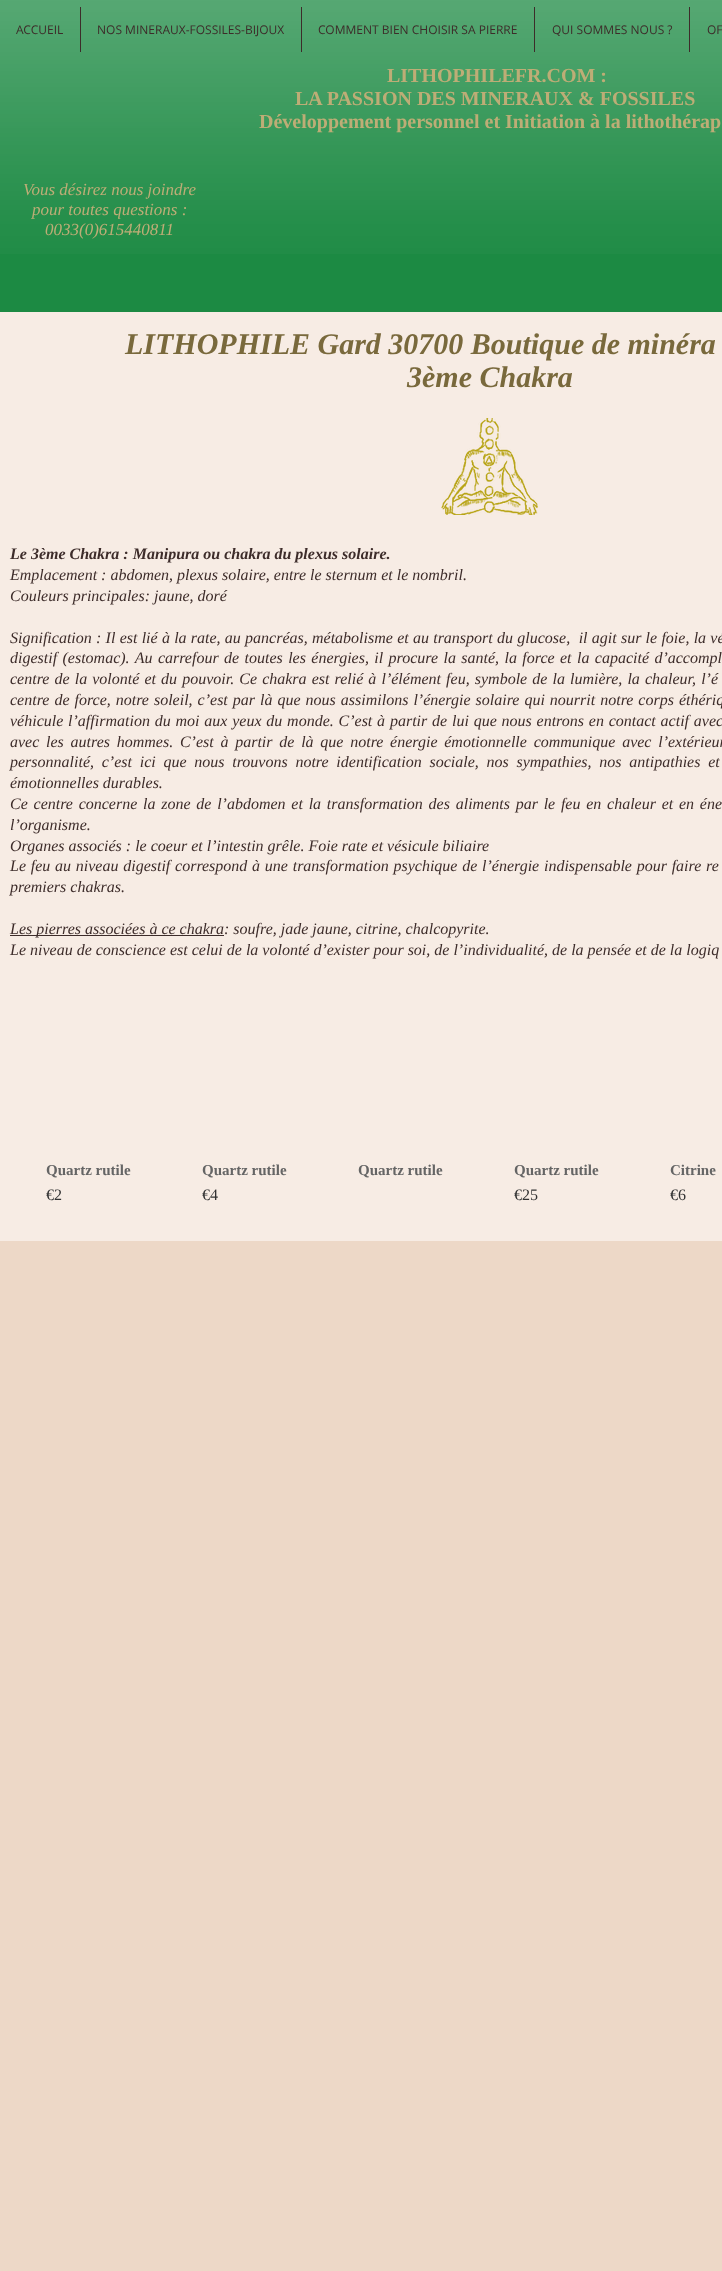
<?xml version="1.0" encoding="UTF-8"?>
<svg xmlns="http://www.w3.org/2000/svg" xmlns:xlink="http://www.w3.org/1999/xlink" width="722" height="2271">
  <rect width="100%" height="100%" fill="#edd8c7" />
  <rect width="722" height="312" fill="#1c8a43" />
  <image x="0" y="0" width="722" height="254" xlink:href="image1.png" />
  <rect x="80" y="7" width="1" height="45" fill="#3d2c2a" />
  <rect x="301" y="7" width="1" height="45" fill="#3d2c2a" />
  <rect x="534" y="7" width="1" height="45" fill="#3d2c2a" />
  <rect x="689" y="7" width="1" height="45" fill="#3d2c2a" />
  <rect y="312" width="722" height="929" fill="#f7ece4" />
  <image x="441" y="418" width="97" height="97" xlink:href="image2.png" />
  <rect x="10" y="935" width="214" height="1" fill="#3d2c2a" />
  <text x="16" y="34" style="font-family: Open Sans; font-size: 12px; fill: #3d2c2a">ACCUEIL</text>
  <text x="97" y="34" style="font-family: Open Sans; font-size: 12px; fill: #3d2c2a">NOS MINERAUX-FOSSILES-BIJOUX</text>
  <text x="318" y="34" style="font-family: Open Sans; font-size: 12px; fill: #3d2c2a">COMMENT BIEN CHOISIR SA PIERRE</text>
  <text x="552" y="34" style="font-family: Open Sans; font-size: 12px; fill: #3d2c2a">QUI SOMMES NOUS ?</text>
  <text x="707" y="34" style="font-family: Open Sans; font-size: 12px; fill: #3d2c2a">OF</text>
  <text x="387" y="82" style="font-family: Liberation Serif; font-size: 20px; font-weight: bold; fill: #bdad76">LITHOPHILEFR.COM :</text>
  <text x="295" y="105" style="font-family: Liberation Serif; font-size: 20px; font-weight: bold; fill: #bdad76">LA PASSION DES MINERAUX &amp; FOSSILES</text>
  <text x="259" y="128" style="font-family: Liberation Serif; font-size: 20px; font-weight: bold; fill: #bdad76">Développement personnel et Initiation à la lithothérap</text>
  <text x="23" y="195" style="font-family: Liberation Serif; font-size: 17px; font-style: italic; fill: #bdad76">Vous désirez nous joindre</text>
  <text x="32" y="215" style="font-family: Liberation Serif; font-size: 17px; font-style: italic; fill: #bdad76">pour toutes questions :</text>
  <text x="45" y="235" style="font-family: Liberation Serif; font-size: 17px; font-style: italic; fill: #bdad76">0033(0)615440811</text>
  <text x="125" y="354" style="font-family: Liberation Serif; font-size: 30px; font-weight: bold; font-style: italic; fill: #79693c">LITHOPHILE Gard 30700 Boutique de minéra</text>
  <text x="407" y="387" style="font-family: Liberation Serif; font-size: 30px; font-weight: bold; font-style: italic; fill: #79693c">3ème Chakra</text>
  <text x="10" y="559" style="font-family: Liberation Serif; font-size: 16px; font-weight: bold; font-style: italic; fill: #3d2c2a">Le 3ème Chakra : Manipura ou chakra du plexus solaire.</text>
  <text x="10" y="580" style="font-family: Liberation Serif; font-size: 16px; font-style: italic; fill: #3d2c2a">Emplacement : abdomen, plexus solaire, entre le sternum et le nombril.</text>
  <text x="10" y="601" style="font-family: Liberation Serif; font-size: 16px; font-style: italic; fill: #3d2c2a">Couleurs principales: jaune, doré</text>
  <text x="10" y="643" word-spacing="0.25" style="font-family: Liberation Serif; font-size: 16px; font-style: italic; fill: #3d2c2a" xml:space="preserve">Signification : Il est lié à la rate, au pancréas, métabolisme et au transport du glucose,  il agit sur le foie, la vé</text>
  <text x="10" y="663" word-spacing="1.4" style="font-family: Liberation Serif; font-size: 16px; font-style: italic; fill: #3d2c2a">digestif (estomac). Au carrefour de toutes les énergies, il procure la santé, la force et la capacité d’accompl</text>
  <text x="10" y="684" word-spacing="1.1" style="font-family: Liberation Serif; font-size: 16px; font-style: italic; fill: #3d2c2a">centre de la volonté et du pouvoir. Ce chakra est relié à l’élément feu, symbole de la lumière, la chaleur, l’é</text>
  <text x="10" y="705" word-spacing="1" style="font-family: Liberation Serif; font-size: 16px; font-style: italic; fill: #3d2c2a">centre de force, notre soleil, c’est par là que nous assimilons l’énergie solaire qui nourrit notre corps éthériq</text>
  <text x="10" y="726" word-spacing="0.8" style="font-family: Liberation Serif; font-size: 16px; font-style: italic; fill: #3d2c2a">véhicule l’affirmation du moi aux yeux du monde. C’est à partir de lui que nous entrons en contact actif avec</text>
  <text x="10" y="747" word-spacing="2.75" style="font-family: Liberation Serif; font-size: 16px; font-style: italic; fill: #3d2c2a">avec les autres hommes. C’est à partir de là que notre énergie émotionnelle communique avec l’extérieur</text>
  <text x="10" y="767" word-spacing="3.75" style="font-family: Liberation Serif; font-size: 16px; font-style: italic; fill: #3d2c2a">personnalité, c’est ici que nous trouvons notre identification sociale, nos sympathies, nos antipathies et</text>
  <text x="10" y="788" style="font-family: Liberation Serif; font-size: 16px; font-style: italic; fill: #3d2c2a">émotionnelles durables.</text>
  <text x="10" y="809" word-spacing="1.75" style="font-family: Liberation Serif; font-size: 16px; font-style: italic; fill: #3d2c2a">Ce centre concerne la zone de l’abdomen et la transformation des aliments par le feu en chaleur et en éne</text>
  <text x="10" y="830" style="font-family: Liberation Serif; font-size: 16px; font-style: italic; fill: #3d2c2a">l’organisme.</text>
  <text x="10" y="851" style="font-family: Liberation Serif; font-size: 16px; font-style: italic; fill: #3d2c2a">Organes associés : le coeur et l’intestin grêle. Foie rate et vésicule biliaire</text>
  <text x="10" y="871" word-spacing="0.75" style="font-family: Liberation Serif; font-size: 16px; font-style: italic; fill: #3d2c2a">Le feu au niveau digestif correspond à une transformation psychique de l’énergie indispensable pour faire re</text>
  <text x="10" y="892" style="font-family: Liberation Serif; font-size: 16px; font-style: italic; fill: #3d2c2a">premiers chakras.</text>
  <text x="10" y="934" style="font-family: Liberation Serif; font-size: 16px; font-style: italic; fill: #3d2c2a">Les pierres associées à ce chakra: soufre, jade jaune, citrine, chalcopyrite.</text>
  <text x="10" y="955" style="font-family: Liberation Serif; font-size: 16px; font-style: italic; fill: #3d2c2a">Le niveau de conscience est celui de la volonté d’exister pour soi, de l’individualité, de la pensée et de la logiq</text>
  <text x="46" y="1175" style="font-family: Liberation Serif; font-size: 15px; font-weight: bold; fill: #656565">Quartz rutile</text>
  <text x="46" y="1200" style="font-family: Liberation Serif; font-size: 16px; fill: #323232">€2</text>
  <text x="202" y="1175" style="font-family: Liberation Serif; font-size: 15px; font-weight: bold; fill: #656565">Quartz rutile</text>
  <text x="202" y="1200" style="font-family: Liberation Serif; font-size: 16px; fill: #323232">€4</text>
  <text x="358" y="1175" style="font-family: Liberation Serif; font-size: 15px; font-weight: bold; fill: #656565">Quartz rutile</text>
  <text x="514" y="1175" style="font-family: Liberation Serif; font-size: 15px; font-weight: bold; fill: #656565">Quartz rutile</text>
  <text x="514" y="1200" style="font-family: Liberation Serif; font-size: 16px; fill: #323232">€25</text>
  <text x="670" y="1175" style="font-family: Liberation Serif; font-size: 15px; font-weight: bold; fill: #656565">Citrine</text>
  <text x="670" y="1200" style="font-family: Liberation Serif; font-size: 16px; fill: #323232">€6</text>
</svg>
